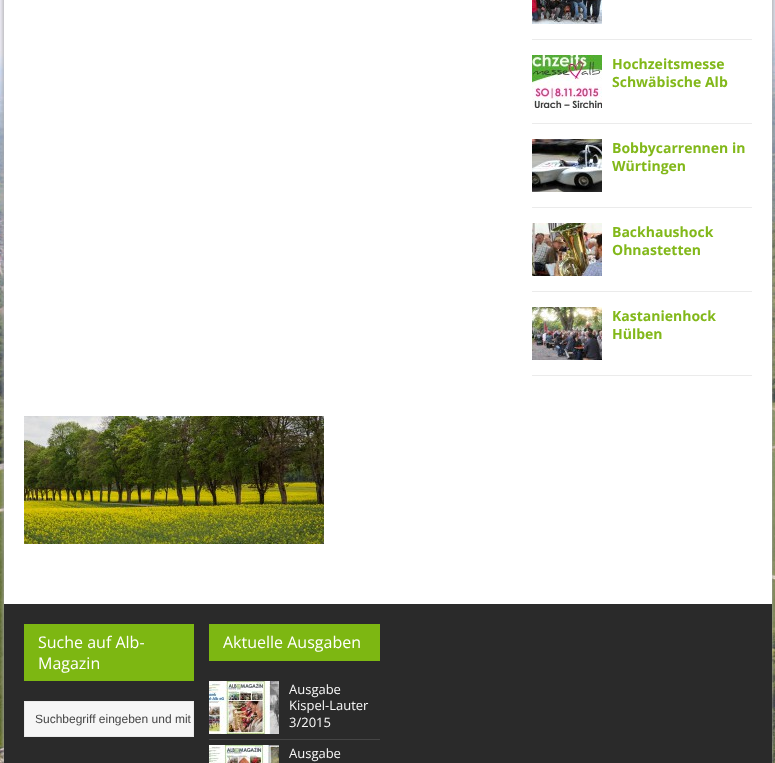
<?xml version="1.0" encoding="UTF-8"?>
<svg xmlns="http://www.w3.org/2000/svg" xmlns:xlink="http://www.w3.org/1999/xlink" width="775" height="763">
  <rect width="100%" height="100%" fill="#ffffff" />
  <image x="0" y="0" width="775" height="763" xlink:href="image1.png" />
  <rect x="3" y="-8" width="770" height="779" fill="#a8a8a8" filter="blur(2.5px)" />
  <rect x="4" width="768" height="604" fill="#ffffff" />
  <rect x="532" y="39" width="220" height="1" fill="#ebebeb" />
  <image x="532" y="0" width="70" height="24" xlink:href="image2.png" />
  <rect x="532" y="123" width="220" height="1" fill="#ebebeb" />
  <image x="532" y="55" width="70" height="53" xlink:href="image3.png" />
  <rect x="532" y="207" width="220" height="1" fill="#ebebeb" />
  <image x="532" y="139" width="70" height="53" xlink:href="image4.png" />
  <rect x="532" y="291" width="220" height="1" fill="#ebebeb" />
  <image x="532" y="223" width="70" height="53" xlink:href="image5.png" />
  <rect x="532" y="375" width="220" height="1" fill="#ebebeb" />
  <image x="532" y="307" width="70" height="53" xlink:href="image6.png" />
  <image x="24" y="416" width="300" height="128" xlink:href="image7.png" />
  <rect x="4" y="604" width="768" height="159" fill="#2a2a2a" />
  <rect x="24" y="624" width="170" height="57" fill="#7db712" />
  <rect x="24.5" y="701.5" width="169" height="35" fill="#f6f6f6" stroke="#ebebeb" />
  <rect x="209" y="624" width="171" height="37" fill="#7db712" />
  <rect x="209" y="739" width="171" height="1" fill="#454545" />
  <image x="209" y="681" width="70" height="53" xlink:href="image8.png" />
  <image x="209" y="745" width="70" height="18" xlink:href="image9.png" />
  <text x="612" y="69" style="font-family: Open Sans; font-size: 14px; font-weight: bold; fill: #82b81a">Hochzeitsmesse</text>
  <text x="612" y="87" style="font-family: Open Sans; font-size: 14px; font-weight: bold; fill: #82b81a">Schwäbische Alb</text>
  <text x="612" y="153" style="font-family: Open Sans; font-size: 14px; font-weight: bold; fill: #82b81a">Bobbycarrennen in</text>
  <text x="612" y="171" style="font-family: Open Sans; font-size: 14px; font-weight: bold; fill: #82b81a">Würtingen</text>
  <text x="612" y="237" style="font-family: Open Sans; font-size: 14px; font-weight: bold; fill: #82b81a">Backhaushock</text>
  <text x="612" y="255" style="font-family: Open Sans; font-size: 14px; font-weight: bold; fill: #82b81a">Ohnastetten</text>
  <text x="612" y="321" style="font-family: Open Sans; font-size: 14px; font-weight: bold; fill: #82b81a">Kastanienhock</text>
  <text x="612" y="339" style="font-family: Open Sans; font-size: 14px; font-weight: bold; fill: #82b81a">Hülben</text>
  <text x="38" y="648" style="font-family: Open Sans; font-size: 16px; fill: #ffffff">Suche auf Alb-</text>
  <text x="38" y="669" style="font-family: Open Sans; font-size: 16px; fill: #ffffff">Magazin</text>
  <text x="35" y="723" style="font-family: Liberation Sans; font-size: 12px; fill: #444444">Suchbegriff eingeben und mit</text>
  <text x="223" y="648" style="font-family: Open Sans; font-size: 16px; fill: #ffffff">Aktuelle Ausgaben</text>
  <text x="289" y="694" style="font-family: Open Sans; font-size: 13px; fill: #f7f7f7">Ausgabe</text>
  <text x="289" y="710" style="font-family: Open Sans; font-size: 13px; fill: #f7f7f7">Kispel-Lauter</text>
  <text x="289" y="727" style="font-family: Open Sans; font-size: 13px; fill: #f7f7f7">3/2015</text>
  <text x="289" y="758" style="font-family: Open Sans; font-size: 13px; fill: #f7f7f7">Ausgabe</text>
</svg>
